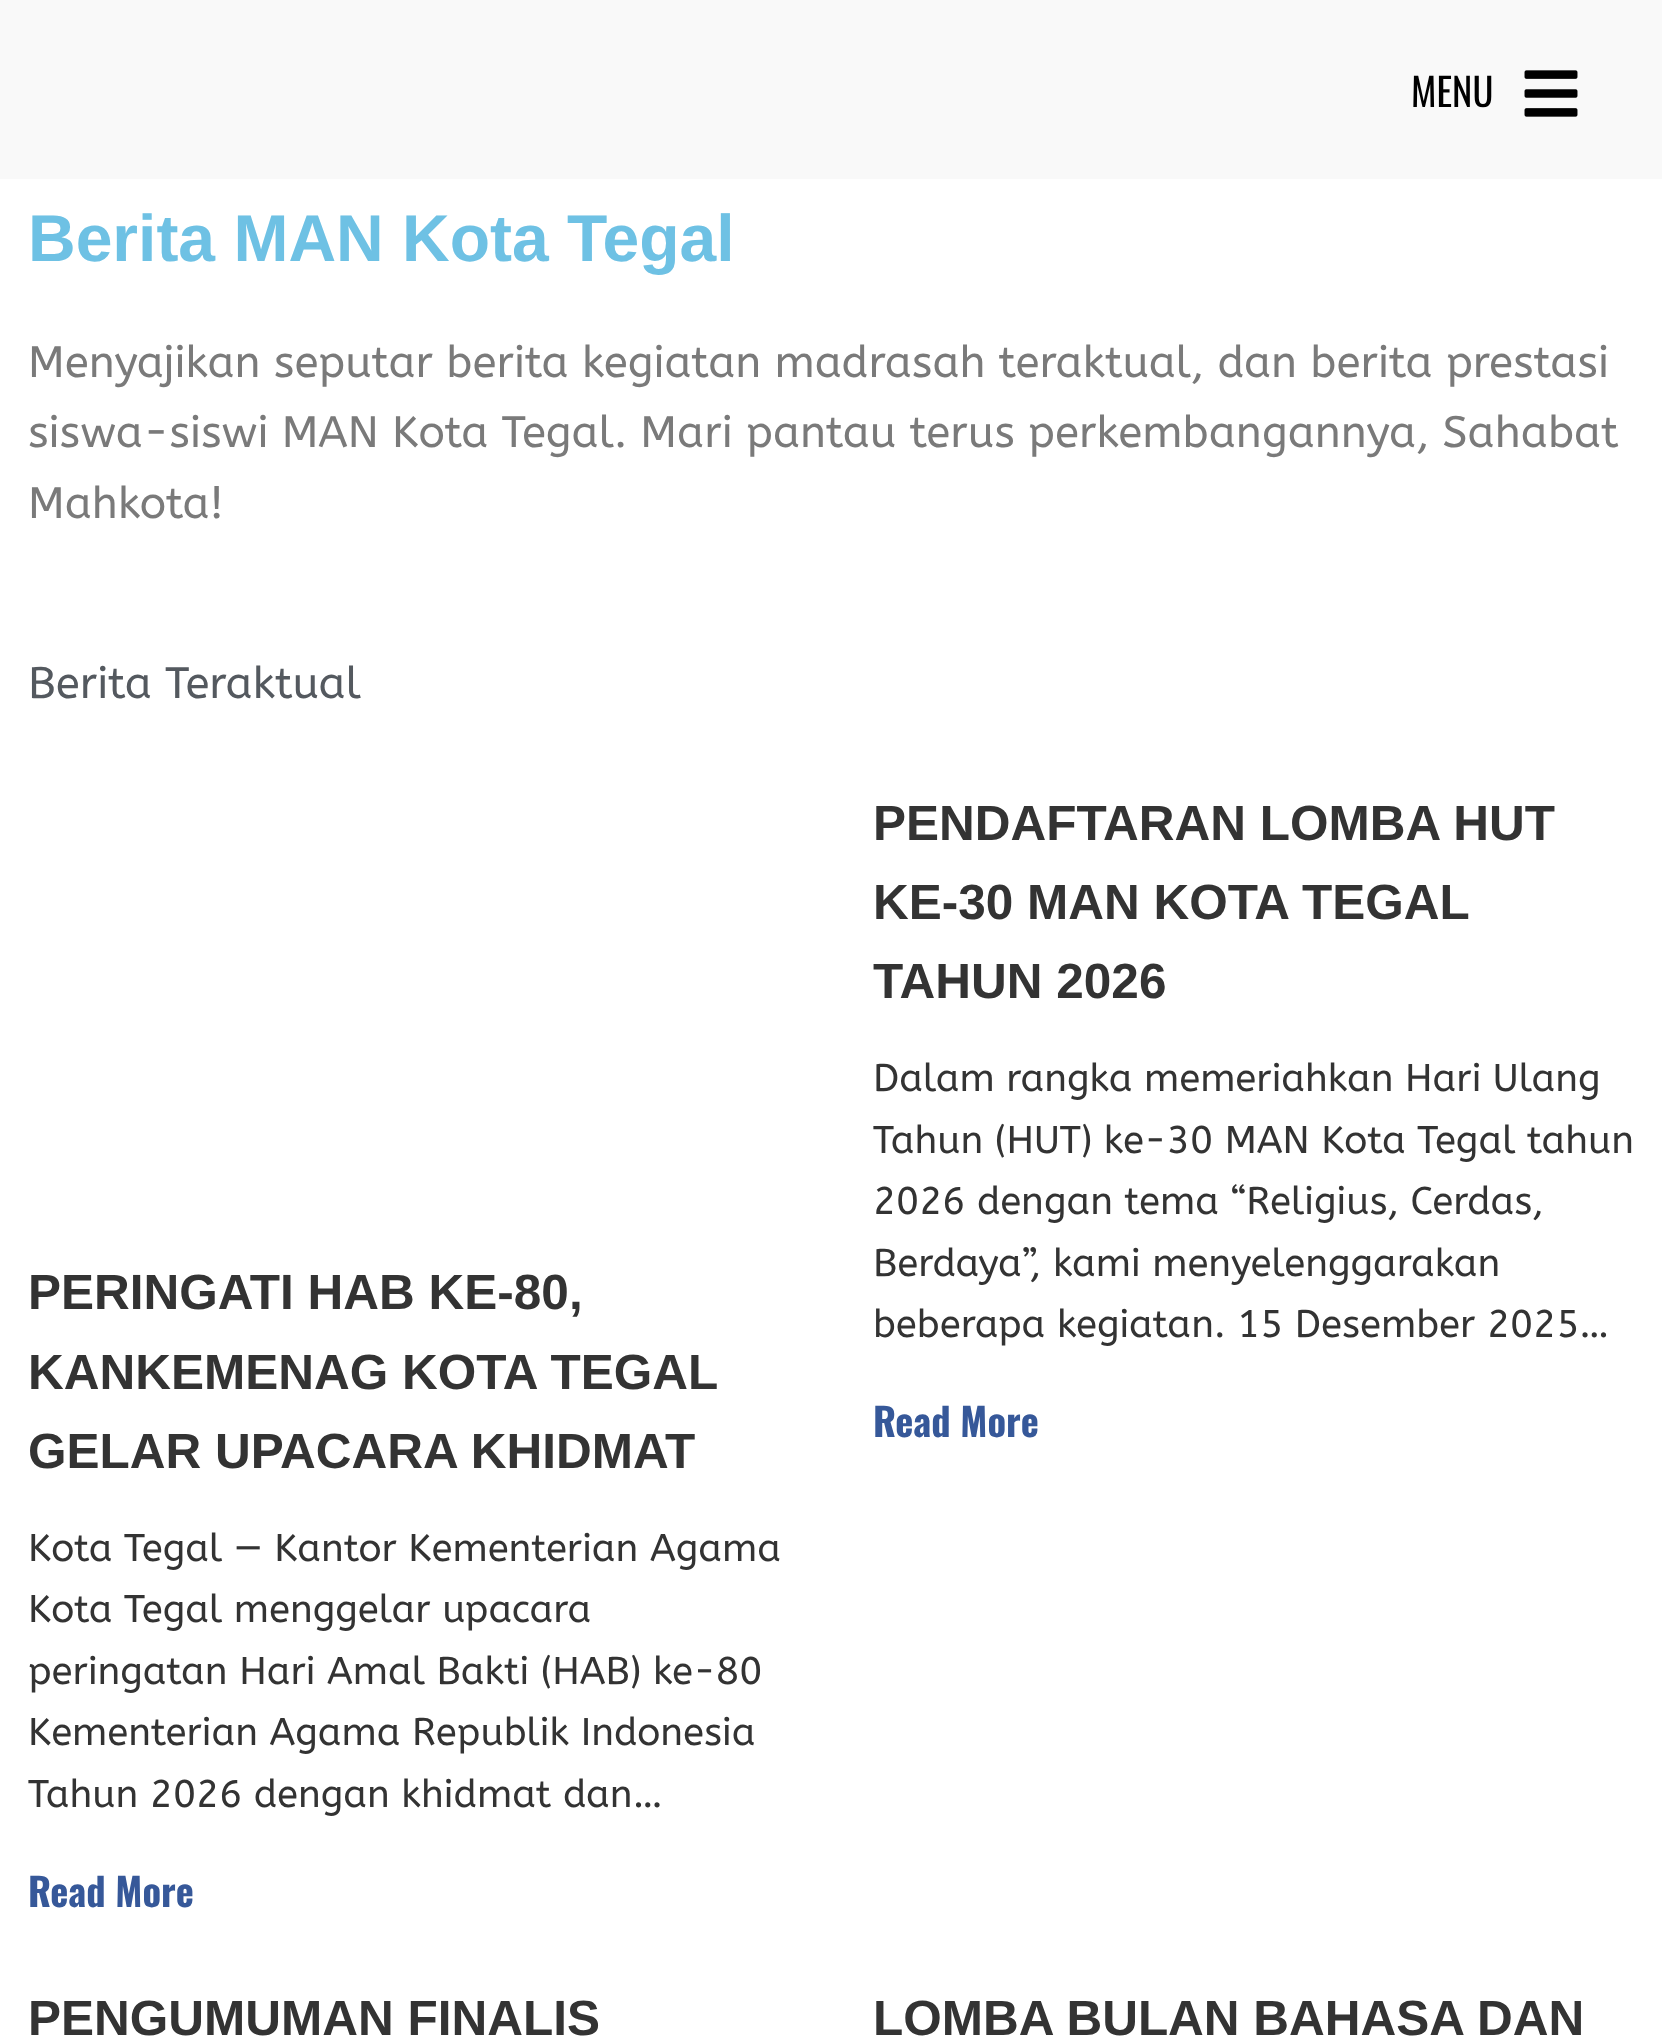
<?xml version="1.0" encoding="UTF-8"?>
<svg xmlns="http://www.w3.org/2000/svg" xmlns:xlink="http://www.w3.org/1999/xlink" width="1662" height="2037">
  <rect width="100%" height="100%" fill="#ffffff" />
  <rect width="1662" height="179" fill="#f9f9f9" />
  <image x="1524" y="70" width="54" height="47" xlink:href="image1.png" />
  <text x="1411" y="107" style="font-family: Oswald; font-size: 38.5px; fill: #000000">MENU</text>
  <text x="28" y="261" style="font-family: Liberation Sans; font-size: 66px; font-weight: bold; fill: #6ec1e4">Berita MAN Kota Tegal</text>
  <text x="28" y="377" style="font-family: ABeeZee; font-size: 44px; fill: #7a7a7a">Menyajikan seputar berita kegiatan madrasah teraktual, dan berita prestasi</text>
  <text x="28" y="447" style="font-family: ABeeZee; font-size: 44px; fill: #7a7a7a">siswa-siswi MAN Kota Tegal. Mari pantau terus perkembangannya, Sahabat</text>
  <text x="28" y="518" style="font-family: ABeeZee; font-size: 44px; fill: #7a7a7a">Mahkota!</text>
  <text x="28" y="698" style="font-family: ABeeZee; font-size: 44px; fill: #54595f">Berita Teraktual</text>
  <text x="873" y="840" style="font-family: Liberation Sans; font-size: 49.5px; font-weight: bold; fill: #333333">PENDAFTARAN LOMBA HUT</text>
  <text x="873" y="919" style="font-family: Liberation Sans; font-size: 49.5px; font-weight: bold; fill: #333333">KE-30 MAN KOTA TEGAL</text>
  <text x="873" y="998" style="font-family: Liberation Sans; font-size: 49.5px; font-weight: bold; fill: #333333">TAHUN 2026</text>
  <text x="873" y="1091" style="font-family: ABeeZee; font-size: 38.5px; fill: #333333">Dalam rangka memeriahkan Hari Ulang</text>
  <text x="873" y="1153" style="font-family: ABeeZee; font-size: 38.5px; fill: #333333">Tahun (HUT) ke-30 MAN Kota Tegal tahun</text>
  <text x="873" y="1214" style="font-family: ABeeZee; font-size: 38.5px; fill: #333333">2026 dengan tema “Religius, Cerdas,</text>
  <text x="873" y="1276" style="font-family: ABeeZee; font-size: 38.5px; fill: #333333">Berdaya”, kami menyelenggarakan</text>
  <text x="873" y="1337" style="font-family: ABeeZee; font-size: 38.5px; fill: #333333">beberapa kegiatan. 15 Desember 2025…</text>
  <text x="873" y="1437" style="font-family: Oswald; font-size: 38.5px; font-weight: bold; fill: #365899">Read More</text>
  <text x="28" y="1309" style="font-family: Liberation Sans; font-size: 49.5px; font-weight: bold; fill: #333333">PERINGATI HAB KE-80,</text>
  <text x="28" y="1389" style="font-family: Liberation Sans; font-size: 49.5px; font-weight: bold; fill: #333333">KANKEMENAG KOTA TEGAL</text>
  <text x="28" y="1468" style="font-family: Liberation Sans; font-size: 49.5px; font-weight: bold; fill: #333333">GELAR UPACARA KHIDMAT</text>
  <text x="28" y="1561" style="font-family: ABeeZee; font-size: 38.5px; fill: #333333">Kota Tegal — Kantor Kementerian Agama</text>
  <text x="28" y="1622" style="font-family: ABeeZee; font-size: 38.5px; fill: #333333">Kota Tegal menggelar upacara</text>
  <text x="28" y="1684" style="font-family: ABeeZee; font-size: 38.5px; fill: #333333">peringatan Hari Amal Bakti (HAB) ke-80</text>
  <text x="28" y="1745" style="font-family: ABeeZee; font-size: 38.5px; fill: #333333">Kementerian Agama Republik Indonesia</text>
  <text x="28" y="1807" style="font-family: ABeeZee; font-size: 38.5px; fill: #333333">Tahun 2026 dengan khidmat dan…</text>
  <text x="28" y="1907" style="font-family: Oswald; font-size: 38.5px; font-weight: bold; fill: #365899">Read More</text>
  <text x="28" y="2035" style="font-family: Liberation Sans; font-size: 49.5px; font-weight: bold; fill: #333333">PENGUMUMAN FINALIS</text>
  <text x="873" y="2035" style="font-family: Liberation Sans; font-size: 49.5px; font-weight: bold; fill: #333333">LOMBA BULAN BAHASA DAN</text>
</svg>
